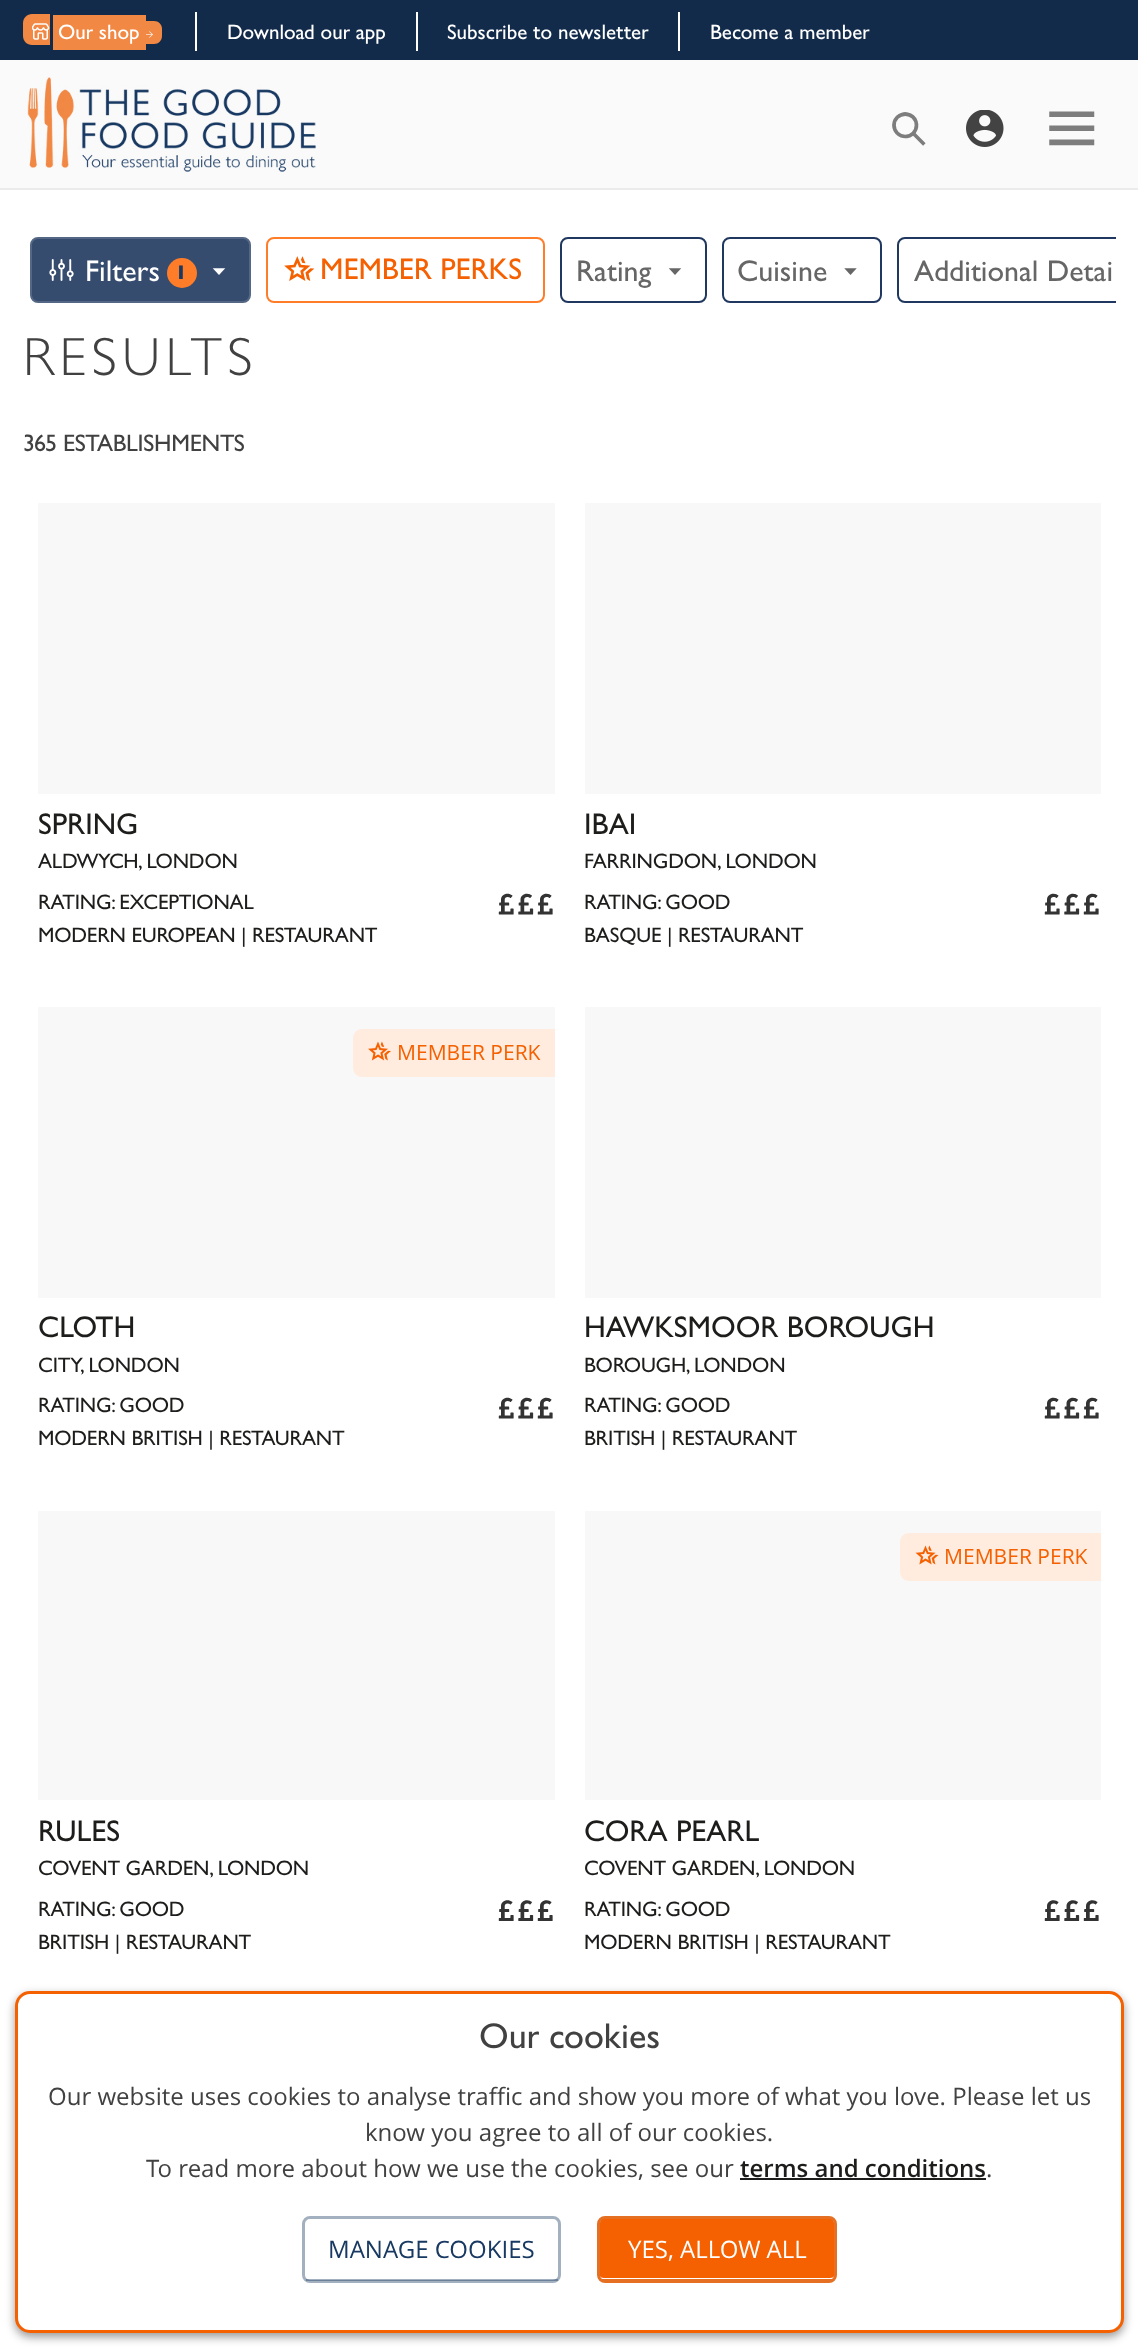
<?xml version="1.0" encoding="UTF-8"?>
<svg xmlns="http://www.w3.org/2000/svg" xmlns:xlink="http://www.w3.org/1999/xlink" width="1138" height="2347">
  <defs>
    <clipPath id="clip1"><rect x="23" y="237" width="1093" height="81" /></clipPath>
  </defs>
  <rect width="100%" height="100%" fill="#ffffff" />
  <rect width="1138" height="60" fill="#122b4a" />
  <rect x="195" y="12" width="2" height="39" fill="#ffffff" />
  <path d="M 32 14 h 18 v 31 h -18 c -5 0 -9 -4 -9 -9 v -13 c 0 -5 4 -9 9 -9 z" fill="#f18844" />
  <rect x="53" y="15" width="93" height="35" fill="#f18844" />
  <path d="M 146 21 h 8 c 4.5 0 8 3.5 8 8 v 7 c 0 4.5 -3.5 8 -8 8 h -8 z" fill="#f18844" />
  <image x="32" y="23" width="18" height="17" xlink:href="image1.png" />
  <image x="146" y="31" width="7" height="7" xlink:href="image2.png" />
  <rect x="416" y="12" width="2" height="39" fill="#ffffff" />
  <rect x="678" y="12" width="2" height="39" fill="#ffffff" />
  <rect y="60" width="1138" height="128" fill="#fafafa" />
  <rect y="188" width="1138" height="2" fill="#ebebeb" />
  <image x="27" y="77" width="289" height="95" xlink:href="image3.png" />
  <image x="892" y="112" width="34" height="34" xlink:href="image4.png" />
  <image x="966" y="110" width="38" height="37" xlink:href="image5.png" />
  <image x="1049" y="111" width="46" height="35" xlink:href="image6.png" />
  <rect x="31" y="238" width="219" height="64" rx="7" fill="#364c6f" stroke="#546785" stroke-width="2" />
  <image x="49" y="259" width="25" height="22" xlink:href="image7.png" />
  <circle cx="182" cy="273" r="15" fill="#ff7d28" />
  <image x="212" y="268" width="14" height="7" xlink:href="image8.png" />
  <rect x="267" y="238" width="277" height="64" rx="7" fill="none" stroke="#ff7d28" stroke-width="2" />
  <image x="284" y="256" width="31" height="25" xlink:href="image9.png" />
  <rect x="561" y="238" width="145" height="64" rx="7" fill="none" stroke="#20385f" stroke-width="2" />
  <image x="668" y="268" width="14" height="7" xlink:href="image10.png" />
  <rect x="723" y="238" width="158" height="64" rx="7" fill="none" stroke="#20385f" stroke-width="2" />
  <image x="844" y="268" width="13" height="7" xlink:href="image11.png" />
  <g clip-path="url(#clip1)">
    <rect x="898" y="238" width="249" height="64" rx="7" fill="none" stroke="#20385f" stroke-width="2" />
  </g>
  <rect x="38" y="503" width="517" height="291" fill="#f9f8f8" />
  <image x="498" y="893" width="16" height="22" xlink:href="image12.png" />
  <image x="518" y="893" width="16" height="22" xlink:href="image13.png" />
  <image x="537" y="893" width="16" height="22" xlink:href="image14.png" />
  <rect x="585" y="503" width="516" height="291" fill="#f9f8f8" />
  <image x="1044" y="893" width="16" height="22" xlink:href="image14.png" />
  <image x="1064" y="893" width="16" height="22" xlink:href="image13.png" />
  <image x="1083" y="893" width="16" height="22" xlink:href="image14.png" />
  <rect x="38" y="1007" width="517" height="291" fill="#f9f8f8" />
  <path d="M 362 1029 h 193 v 48 h -193 c -5 0 -9 -4 -9 -9 v -30 c 0 -5 4 -9 9 -9 z" fill="#ffecdf" />
  <image x="368" y="1041" width="23" height="20" xlink:href="image15.png" />
  <image x="498" y="1397" width="16" height="22" xlink:href="image12.png" />
  <image x="518" y="1397" width="16" height="22" xlink:href="image13.png" />
  <image x="537" y="1397" width="16" height="22" xlink:href="image14.png" />
  <rect x="585" y="1007" width="516" height="291" fill="#f9f8f8" />
  <image x="1044" y="1397" width="16" height="22" xlink:href="image14.png" />
  <image x="1064" y="1397" width="16" height="22" xlink:href="image13.png" />
  <image x="1083" y="1397" width="16" height="22" xlink:href="image14.png" />
  <rect x="38" y="1511" width="517" height="289" fill="#f9f8f8" />
  <image x="498" y="1900" width="16" height="21" xlink:href="image16.png" />
  <image x="518" y="1900" width="16" height="21" xlink:href="image17.png" />
  <image x="537" y="1900" width="16" height="21" xlink:href="image18.png" />
  <rect x="585" y="1511" width="516" height="289" fill="#f9f8f8" />
  <path d="M 909 1533 h 192 v 48 h -192 c -5 0 -9 -4 -9 -9 v -30 c 0 -5 4 -9 9 -9 z" fill="#ffecdf" />
  <image x="915" y="1545" width="24" height="20" xlink:href="image19.png" />
  <image x="1044" y="1900" width="16" height="21" xlink:href="image18.png" />
  <image x="1064" y="1900" width="16" height="21" xlink:href="image17.png" />
  <image x="1083" y="1900" width="16" height="21" xlink:href="image18.png" />
  <rect x="15" y="1995" width="1109" height="342" rx="15" fill="#000000" fill-opacity="0.4" filter="blur(5px)" />
  <rect x="16.5" y="1992.5" width="1106" height="339" rx="13.5" fill="#ffffff" stroke="#f56000" stroke-width="3" />
  <rect x="740" y="2178" width="246" height="2" fill="#1d1d1b" />
  <rect x="303.5" y="2217.5" width="256" height="64" rx="6.5" fill="none" stroke="#a3b0c0" stroke-width="3" />
  <rect x="306" y="2279" width="252" height="2" fill="#183962" fill-opacity="0.4" />
  <path d="M 604 2218 h 226 c 2 0 4 3 4 5 v 53 c 0 1 -2 2 -4 2 h -226 c -2 0 -4 -1 -4 -2 v -53 c 0 -2 2 -5 4 -5 z" fill="#f56000" />
  <rect x="598.5" y="2217.5" width="237" height="64" rx="6.5" fill="none" stroke="#e57024" stroke-width="3" />
  <rect x="602" y="2279" width="232" height="1" fill="#e57024" />
  <text x="58" y="39" style="font-family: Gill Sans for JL; font-size: 21px; fill: #ffffff">Our shop</text>
  <text x="227" y="39" style="font-family: Gill Sans for JL; font-size: 21px; fill: #ffffff">Download our app</text>
  <text x="447" y="39" style="font-family: Gill Sans for JL; font-size: 21px; fill: #ffffff">Subscribe to newsletter</text>
  <text x="710" y="39" style="font-family: Gill Sans for JL; font-size: 21px; fill: #ffffff">Become a member</text>
  <text x="85" y="281" style="font-family: Gill Sans; font-size: 30px; fill: #ffffff">Filters</text>
  <text x="175" y="279" style="font-family: Gill Sans; font-size: 20px; font-weight: bold; fill: #183962">1</text>
  <text x="320" y="279" style="font-family: Gill Sans; font-size: 30px; fill: #f56000">MEMBER PERKS</text>
  <text x="576" y="281" style="font-family: Gill Sans; font-size: 30px; fill: #666666">Rating</text>
  <text x="737" y="281" style="font-family: Gill Sans; font-size: 30px; fill: #666666">Cuisine</text>
  <text x="914" y="281" style="font-family: Gill Sans; font-size: 30px; fill: #666666">Additional Detai</text>
  <text x="23" y="375" style="font-family: Gill Sans for JL; font-size: 54px; font-weight: 300; letter-spacing: 5.5px; fill: #414141">RESULTS</text>
  <text x="23" y="451" style="font-family: Gill Sans for JL; font-size: 24px; letter-spacing: -0.25px; fill: #414141">365 ESTABLISHMENTS</text>
  <text x="38" y="834" style="font-family: Gill Sans for JL; font-size: 30px; fill: #1d1d1b">SPRING</text>
  <text x="38" y="868" style="font-family: Gill Sans for JL; font-size: 21px; letter-spacing: -0.2px; fill: #1d1d1b">ALDWYCH, LONDON</text>
  <text x="38" y="909" style="font-family: Gill Sans for JL; font-size: 21px; letter-spacing: -0.2px; fill: #1d1d1b">RATING: EXCEPTIONAL</text>
  <text x="38" y="942" style="font-family: Gill Sans for JL; font-size: 21px; letter-spacing: -0.2px; fill: #1d1d1b">MODERN EUROPEAN | RESTAURANT</text>
  <text x="584" y="834" style="font-family: Gill Sans for JL; font-size: 30px; fill: #1d1d1b">IBAI</text>
  <text x="584" y="868" style="font-family: Gill Sans for JL; font-size: 21px; letter-spacing: -0.2px; fill: #1d1d1b">FARRINGDON, LONDON</text>
  <text x="584" y="909" style="font-family: Gill Sans for JL; font-size: 21px; letter-spacing: -0.2px; fill: #1d1d1b">RATING: GOOD</text>
  <text x="584" y="942" style="font-family: Gill Sans for JL; font-size: 21px; letter-spacing: -0.2px; fill: #1d1d1b">BASQUE | RESTAURANT</text>
  <text x="397" y="1060" style="font-family: Open Sans; font-size: 21px; fill: #f56000">MEMBER PERK</text>
  <text x="38" y="1337" style="font-family: Gill Sans for JL; font-size: 30px; fill: #1d1d1b">CLOTH</text>
  <text x="38" y="1372" style="font-family: Gill Sans for JL; font-size: 21px; letter-spacing: -0.2px; fill: #1d1d1b">CITY, LONDON</text>
  <text x="38" y="1412" style="font-family: Gill Sans for JL; font-size: 21px; letter-spacing: -0.2px; fill: #1d1d1b">RATING: GOOD</text>
  <text x="38" y="1445" style="font-family: Gill Sans for JL; font-size: 21px; letter-spacing: -0.2px; fill: #1d1d1b">MODERN BRITISH | RESTAURANT</text>
  <text x="584" y="1337" style="font-family: Gill Sans for JL; font-size: 30px; fill: #1d1d1b">HAWKSMOOR BOROUGH</text>
  <text x="584" y="1372" style="font-family: Gill Sans for JL; font-size: 21px; letter-spacing: -0.2px; fill: #1d1d1b">BOROUGH, LONDON</text>
  <text x="584" y="1412" style="font-family: Gill Sans for JL; font-size: 21px; letter-spacing: -0.2px; fill: #1d1d1b">RATING: GOOD</text>
  <text x="584" y="1445" style="font-family: Gill Sans for JL; font-size: 21px; letter-spacing: -0.2px; fill: #1d1d1b">BRITISH | RESTAURANT</text>
  <text x="38" y="1841" style="font-family: Gill Sans for JL; font-size: 30px; fill: #1d1d1b">RULES</text>
  <text x="38" y="1875" style="font-family: Gill Sans for JL; font-size: 21px; letter-spacing: -0.2px; fill: #1d1d1b">COVENT GARDEN, LONDON</text>
  <text x="38" y="1916" style="font-family: Gill Sans for JL; font-size: 21px; letter-spacing: -0.2px; fill: #1d1d1b">RATING: GOOD</text>
  <text x="38" y="1949" style="font-family: Gill Sans for JL; font-size: 21px; letter-spacing: -0.2px; fill: #1d1d1b">BRITISH | RESTAURANT</text>
  <text x="944" y="1564" style="font-family: Open Sans; font-size: 21px; fill: #f56000">MEMBER PERK</text>
  <text x="584" y="1841" style="font-family: Gill Sans for JL; font-size: 30px; fill: #1d1d1b">CORA PEARL</text>
  <text x="584" y="1875" style="font-family: Gill Sans for JL; font-size: 21px; letter-spacing: -0.2px; fill: #1d1d1b">COVENT GARDEN, LONDON</text>
  <text x="584" y="1916" style="font-family: Gill Sans for JL; font-size: 21px; letter-spacing: -0.2px; fill: #1d1d1b">RATING: GOOD</text>
  <text x="584" y="1949" style="font-family: Gill Sans for JL; font-size: 21px; letter-spacing: -0.2px; fill: #1d1d1b">MODERN BRITISH | RESTAURANT</text>
  <text x="479" y="2048" style="font-family: Gill Sans for JL; font-size: 36px; fill: #414141">Our cookies</text>
  <text x="48" y="2105" style="font-family: Open Sans; font-size: 24px; fill: #414141">Our website uses cookies to analyse traffic and show you more of what you love. Please let us</text>
  <text x="365" y="2141" style="font-family: Open Sans; font-size: 24px; fill: #414141">know you agree to all of our cookies.</text>
  <text x="146" y="2177" style="font-family: Open Sans; font-size: 24px; fill: #414141">To read more about how we use the cookies, see our</text>
  <text x="740" y="2177" style="font-family: Open Sans; font-size: 24px; font-weight: 600; fill: #1d1d1b">terms and conditions</text>
  <text x="986" y="2177" style="font-family: Open Sans; font-size: 24px; fill: #414141">.</text>
  <text x="328" y="2258" style="font-family: Open Sans; font-size: 24px; fill: #183962">MANAGE COOKIES</text>
  <text x="628" y="2258" style="font-family: Open Sans; font-size: 24px; fill: #ffffff">YES, ALLOW ALL</text>
</svg>
